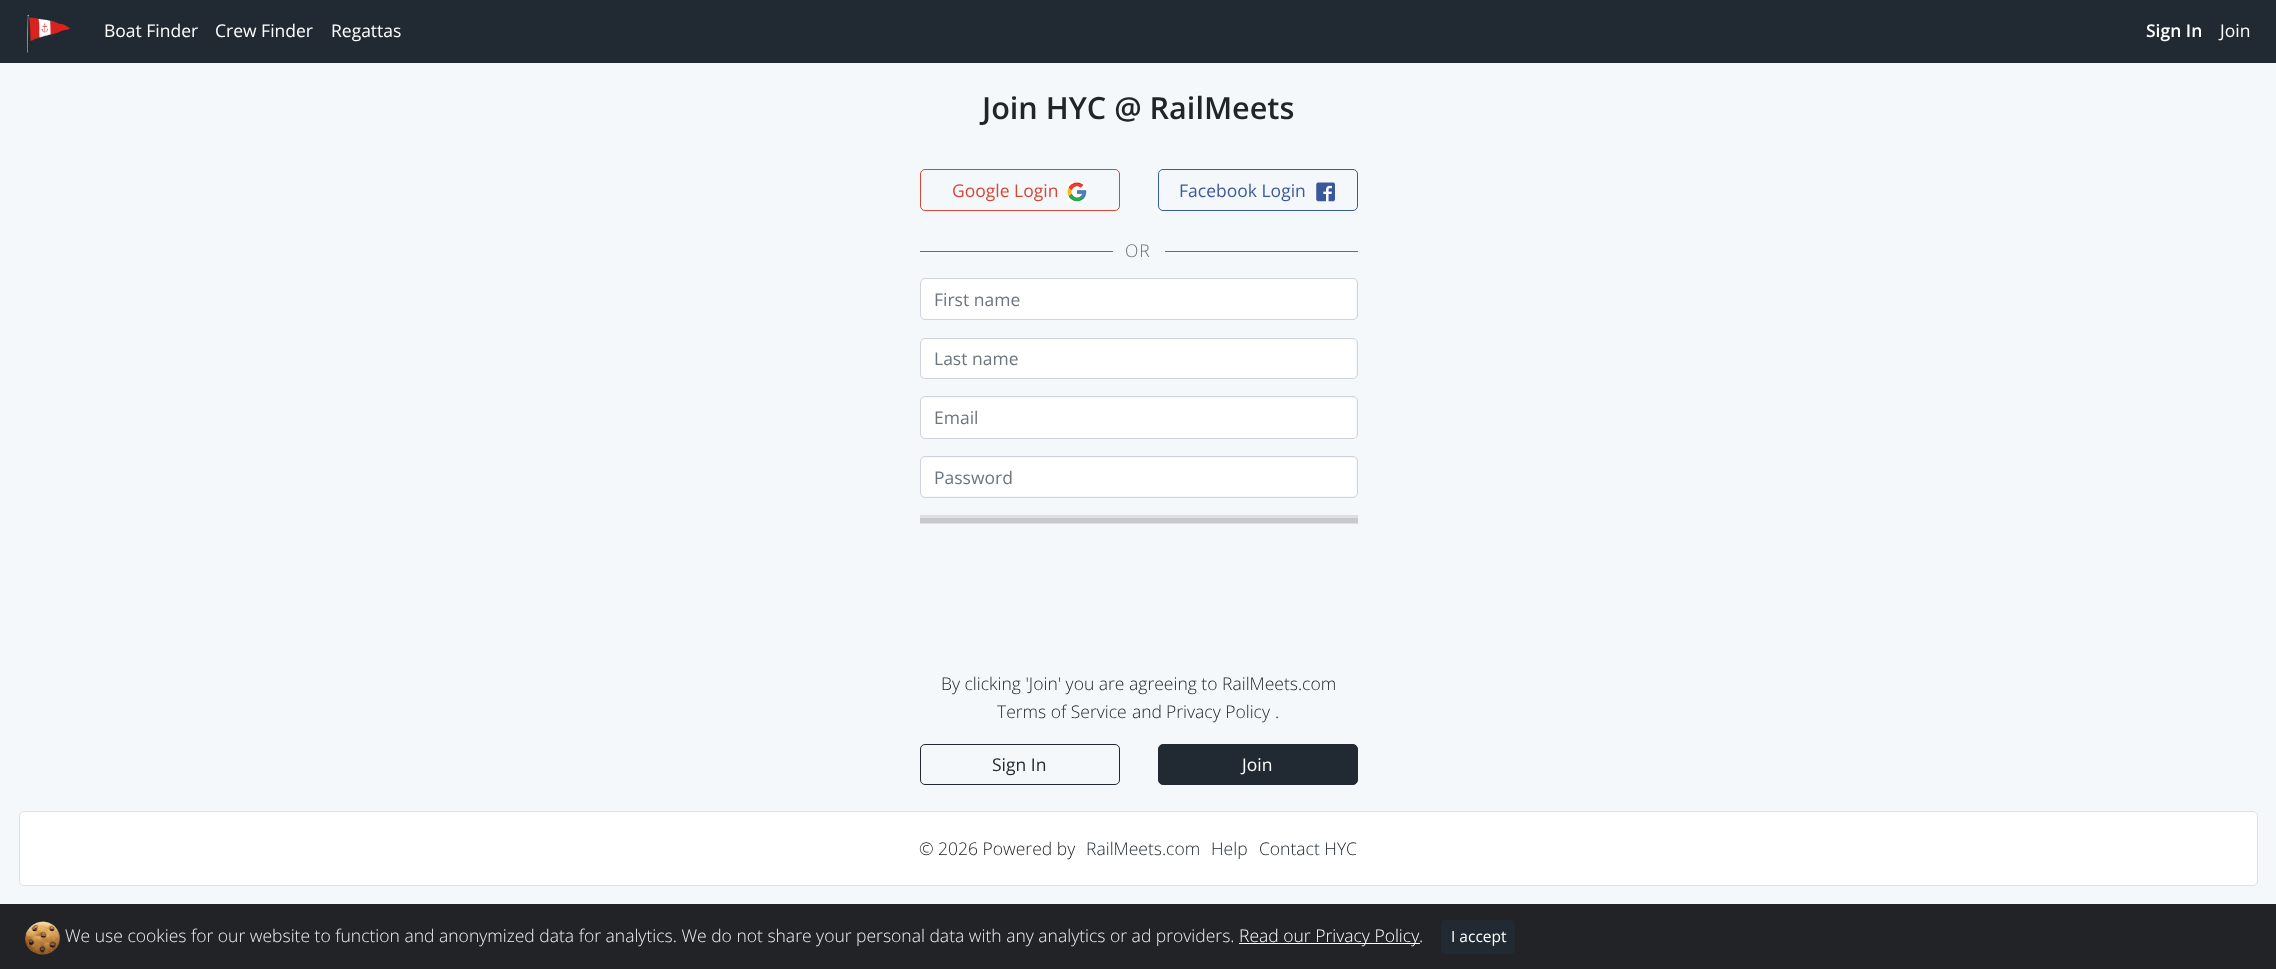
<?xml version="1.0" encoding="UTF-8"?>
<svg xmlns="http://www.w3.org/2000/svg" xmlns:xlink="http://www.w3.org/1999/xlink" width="2276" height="969">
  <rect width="100%" height="100%" fill="#f5f8fa" />
  <rect width="2276" height="63" fill="#212a32" />
  <image x="27" y="14" width="43" height="39" xlink:href="image1.png" />
  <rect x="920.5" y="169.5" width="199" height="41" rx="4.5" fill="none" stroke="#d34836" />
  <image x="1067" y="182" width="20" height="20" xlink:href="image2.png" />
  <rect x="1158.5" y="169.5" width="199" height="41" rx="4.5" fill="none" stroke="#3b5a9b" />
  <image x="1316" y="182" width="19" height="20" xlink:href="image3.png" />
  <rect x="920" y="251" width="193" height="1" fill="#666e76" />
  <rect x="1165" y="251" width="193" height="1" fill="#666e76" />
  <rect x="921" y="279" width="435" height="40" rx="3" fill="#ffffff" />
  <rect x="920.5" y="278.5" width="437" height="41" rx="4.5" fill="none" stroke="#ced4da" />
  <rect x="921" y="339" width="435" height="39" rx="3" fill="#ffffff" />
  <rect x="920.5" y="338.5" width="437" height="40" rx="4.5" fill="none" stroke="#ced4da" />
  <rect x="921" y="398" width="435" height="40" rx="3" fill="#ffffff" />
  <rect x="920.5" y="396.5" width="437" height="42" rx="4.5" fill="none" stroke="#ced4da" />
  <rect x="921" y="458" width="435" height="38" rx="3" fill="#ffffff" />
  <rect x="920.5" y="456.5" width="437" height="41" rx="4.5" fill="none" stroke="#ced4da" />
  <rect x="920" y="515" width="438" height="9" fill="#dddfe1" />
  <rect x="920" y="518" width="438" height="5" fill="#c7c9cb" />
  <rect x="920.5" y="744.5" width="199" height="40" rx="4.5" fill="none" stroke="#212a32" />
  <rect x="1158.5" y="744.5" width="199" height="40" rx="4.5" fill="#212a32" stroke="#212a32" />
  <rect x="19" y="811" width="2239" height="75" rx="5" fill="#ffffff" />
  <rect x="19.5" y="811.5" width="2238" height="74" rx="4.5" fill="none" stroke="#000000" stroke-opacity="0.12" />
  <rect y="904" width="2276" height="65" fill="#212327" />
  <image x="25" y="921" width="35" height="34" xlink:href="image4.png" />
  <rect x="1239" y="943" width="181" height="1" fill="#ffffff" />
  <rect x="1441" y="920" width="74" height="34" rx="4" fill="#212a32" />
  <text x="104" y="37" style="font-family: Open Sans; font-size: 17.5px; fill: #ffffff">Boat Finder</text>
  <text x="215" y="37" style="font-family: Open Sans; font-size: 17.5px; fill: #ffffff">Crew Finder</text>
  <text x="331" y="37" style="font-family: Open Sans; font-size: 17.5px; fill: #ffffff">Regattas</text>
  <text x="2146" y="37" style="font-family: Open Sans; font-size: 17.5px; font-weight: 600; fill: #ffffff">Sign In</text>
  <text x="2220" y="37" style="font-family: Open Sans; font-size: 17.5px; fill: #ffffff">Join</text>
  <text x="982" y="119" style="font-family: Open Sans; font-size: 30.6px; font-weight: 600; fill: #212529">Join HYC @ RailMeets</text>
  <text x="952" y="197" style="font-family: Open Sans; font-size: 17.5px; fill: #d34836">Google Login</text>
  <text x="1179" y="197" style="font-family: Open Sans; font-size: 17.5px; fill: #3b5a9b">Facebook Login</text>
  <text x="1125" y="257" style="font-family: Open Sans; font-size: 17.5px; font-weight: 300; letter-spacing: 1px; fill: #666e76">OR</text>
  <text x="934" y="306" style="font-family: Open Sans; font-size: 17.5px; fill: #6c757d">First name</text>
  <text x="934" y="365" style="font-family: Open Sans; font-size: 17.5px; fill: #6c757d">Last name</text>
  <text x="934" y="424" style="font-family: Open Sans; font-size: 17.5px; fill: #6c757d">Email</text>
  <text x="934" y="484" style="font-family: Open Sans; font-size: 17.5px; fill: #6c757d">Password</text>
  <text x="941" y="690" style="font-family: Open Sans; font-size: 17.5px; font-weight: 300; fill: #212529">By clicking 'Join' you are agreeing to RailMeets.com</text>
  <text x="997" y="718" style="font-family: Open Sans; font-size: 17.5px; font-weight: 300; fill: #212a32">Terms of Service</text>
  <text x="1132" y="718" style="font-family: Open Sans; font-size: 17.5px; font-weight: 300; fill: #212529">and</text>
  <text x="1166" y="718" style="font-family: Open Sans; font-size: 17.5px; font-weight: 300; fill: #212a32">Privacy Policy</text>
  <text x="1275" y="718" style="font-family: Open Sans; font-size: 17.5px; font-weight: 300; fill: #212529">.</text>
  <text x="992" y="771" style="font-family: Open Sans; font-size: 17.5px; fill: #212a32">Sign In</text>
  <text x="1242" y="771" style="font-family: Open Sans; font-size: 17.5px; fill: #ffffff">Join</text>
  <text x="919" y="855" style="font-family: Open Sans; font-size: 17.5px; font-weight: 300; fill: #212529">© 2026 Powered by</text>
  <text x="1086" y="855" style="font-family: Open Sans; font-size: 17.5px; font-weight: 300; fill: #212a32">RailMeets.com</text>
  <text x="1211" y="855" style="font-family: Open Sans; font-size: 17.5px; font-weight: 300; fill: #212a32">Help</text>
  <text x="1259" y="855" style="font-family: Open Sans; font-size: 17.5px; font-weight: 300; fill: #212a32">Contact HYC</text>
  <text x="65" y="942" style="font-family: Open Sans; font-size: 17.5px; font-weight: 300; fill: #ecf0f1">We use cookies for our website to function and anonymized data for analytics. We do not share your personal data with any analytics or ad providers.</text>
  <text x="1239" y="942" style="font-family: Open Sans; font-size: 17.5px; font-weight: 300; fill: #ffffff">Read our Privacy Policy</text>
  <text x="1419" y="942" style="font-family: Open Sans; font-size: 17.5px; font-weight: 300; fill: #ecf0f1">.</text>
  <text x="1451" y="942" style="font-family: Open Sans; font-size: 15.5px; fill: #ffffff">I accept</text>
</svg>
